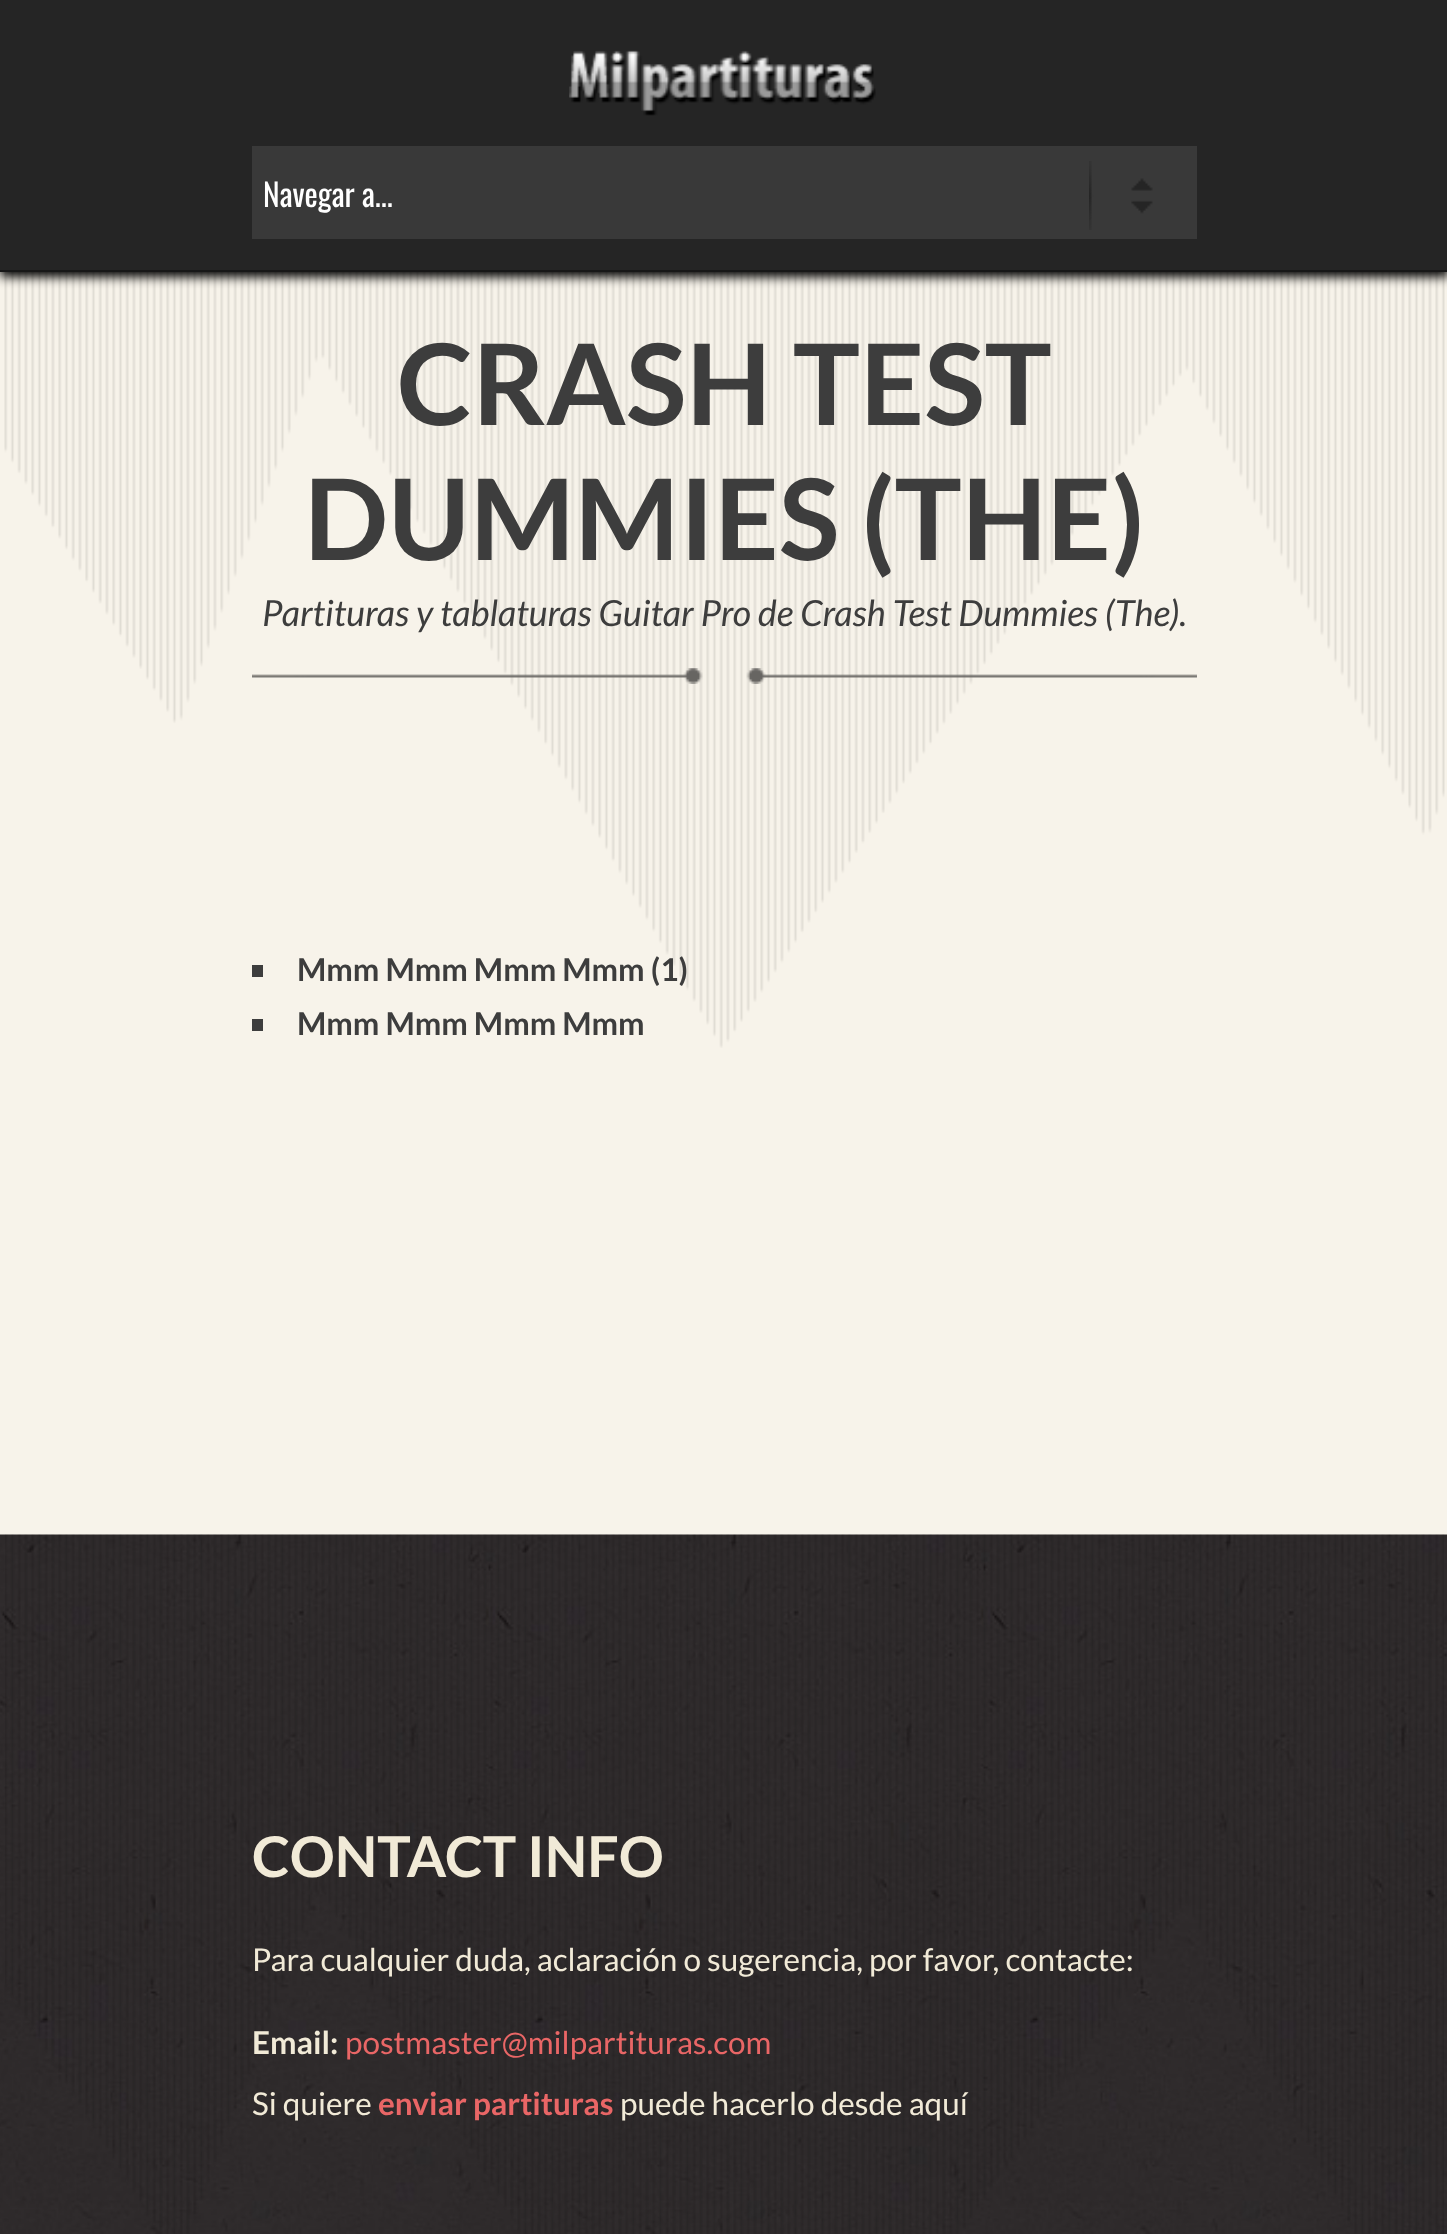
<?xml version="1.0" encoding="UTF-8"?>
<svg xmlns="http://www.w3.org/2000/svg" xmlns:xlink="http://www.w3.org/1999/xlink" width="1447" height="2234">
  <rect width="100%" height="100%" fill="#f7f3ea" />
  <image x="4" y="272" width="1441" height="776" xlink:href="image3.png" />
  <rect y="5" width="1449" height="272" fill="#000000" filter="blur(5.5px)" />
  <rect width="1447" height="270" fill="#252525" />
  <rect y="270" width="1447" height="2" fill="#171717" />
  <image x="569" y="50" width="307" height="66" xlink:href="image1.png" />
  <rect x="252" y="146" width="945" height="93" fill="#393939" />
  <image x="1089" y="161" width="64" height="69" xlink:href="image2.png" />
  <image x="252" y="668" width="945" height="16" xlink:href="image4.png" />
  <rect x="252" y="965" width="11" height="12" fill="#3d3d3d" />
  <rect x="252" y="1019" width="11" height="12" fill="#3d3d3d" />
  <image x="0" y="1534" width="1447" height="700" xlink:href="image5.png" />
  <image x="5" y="1534" width="1439" height="700" xlink:href="image6.png" />
  <text x="263" y="207" style="font-family: Oswald; font-size: 31.5px; fill: #ffffff">Navegar a...</text>
  <text x="397" y="425" style="font-family: Lato; font-size: 112.5px; font-weight: bold; fill: #3d3d3d">CRASH TEST</text>
  <text x="304" y="560" style="font-family: Lato; font-size: 112.5px; font-weight: bold; fill: #3d3d3d">DUMMIES (THE)</text>
  <text x="262" y="626" style="font-family: Lato; font-size: 36px; font-style: italic; fill: #3d3d3d">Partituras y tablaturas Guitar Pro de Crash Test Dummies (The).</text>
  <text x="297" y="981" style="font-family: Lato; font-size: 31.5px; font-weight: bold; fill: #3d3d3d">Mmm Mmm Mmm Mmm (1)</text>
  <text x="297" y="1035" style="font-family: Lato; font-size: 31.5px; font-weight: bold; fill: #3d3d3d">Mmm Mmm Mmm Mmm</text>
  <text x="252" y="1877" style="font-family: Lato; font-size: 56.25px; font-weight: bold; fill: #f1ead7">CONTACT INFO</text>
  <text x="252" y="1971" style="font-family: Lato; font-size: 31.5px; fill: #f1ead7">Para cualquier duda, aclaración o sugerencia, por favor, contacte:</text>
  <text x="252" y="2054" style="font-family: Lato; font-size: 31.5px; font-weight: bold; fill: #f1ead7">Email:</text>
  <text x="345" y="2054" style="font-family: Lato; font-size: 31.5px; fill: #e96666">postmaster@milpartituras.com</text>
  <text x="252" y="2115" style="font-family: Lato; font-size: 31.5px; fill: #f1ead7">Si quiere</text>
  <text x="378" y="2115" style="font-family: Lato; font-size: 31.5px; font-weight: bold; fill: #e96666">enviar partituras</text>
  <text x="620" y="2115" style="font-family: Lato; font-size: 31.5px; fill: #f1ead7">puede hacerlo desde aquí</text>
</svg>
